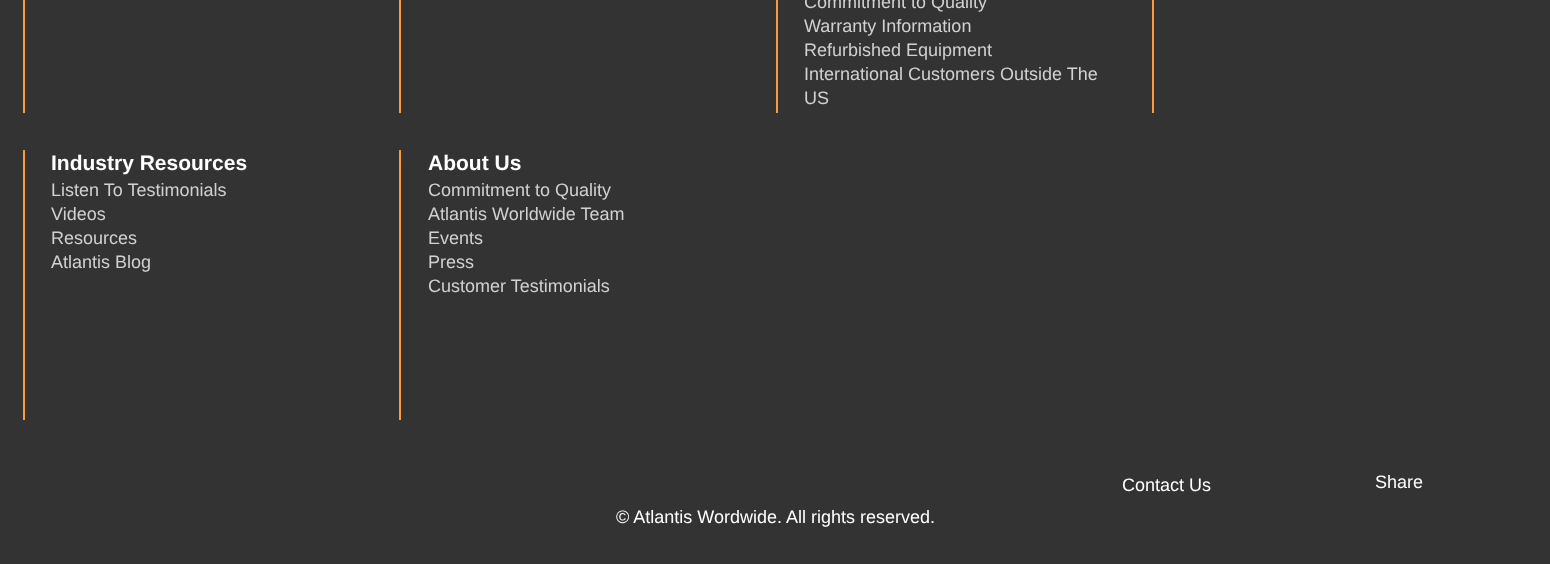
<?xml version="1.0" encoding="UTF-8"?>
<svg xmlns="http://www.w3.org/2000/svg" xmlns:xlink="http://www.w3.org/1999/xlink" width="1550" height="564">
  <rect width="100%" height="100%" fill="#333333" />
  <rect x="23" width="2" height="113" fill="#fc9a39" />
  <rect x="399" width="2" height="113" fill="#fc9a39" />
  <rect x="776" width="2" height="113" fill="#fc9a39" />
  <rect x="1152" width="2" height="113" fill="#fc9a39" />
  <rect x="23" y="150" width="2" height="270" fill="#fc9a39" />
  <rect x="399" y="150" width="2" height="270" fill="#fc9a39" />
  <text x="804" y="8" style="font-family: Liberation Sans; font-size: 18px; fill: #d1d1d1">Commitment to Quality</text>
  <text x="804" y="32" style="font-family: Liberation Sans; font-size: 18px; fill: #d1d1d1">Warranty Information</text>
  <text x="804" y="56" style="font-family: Liberation Sans; font-size: 18px; fill: #d1d1d1">Refurbished Equipment</text>
  <text x="804" y="80" style="font-family: Liberation Sans; font-size: 18px; fill: #d1d1d1">International Customers Outside The</text>
  <text x="804" y="104" style="font-family: Liberation Sans; font-size: 18px; fill: #d1d1d1">US</text>
  <text x="51" y="170" style="font-family: Liberation Sans; font-size: 21px; font-weight: bold; fill: #ffffff">Industry Resources</text>
  <text x="51" y="196" style="font-family: Liberation Sans; font-size: 18px; fill: #d1d1d1">Listen To Testimonials</text>
  <text x="51" y="220" style="font-family: Liberation Sans; font-size: 18px; fill: #d1d1d1">Videos</text>
  <text x="51" y="244" style="font-family: Liberation Sans; font-size: 18px; fill: #d1d1d1">Resources</text>
  <text x="51" y="268" style="font-family: Liberation Sans; font-size: 18px; fill: #d1d1d1">Atlantis Blog</text>
  <text x="428" y="170" style="font-family: Liberation Sans; font-size: 21px; font-weight: bold; fill: #ffffff">About Us</text>
  <text x="428" y="196" style="font-family: Liberation Sans; font-size: 18px; fill: #d1d1d1">Commitment to Quality</text>
  <text x="428" y="220" style="font-family: Liberation Sans; font-size: 18px; fill: #d1d1d1">Atlantis Worldwide Team</text>
  <text x="428" y="244" style="font-family: Liberation Sans; font-size: 18px; fill: #d1d1d1">Events</text>
  <text x="428" y="268" style="font-family: Liberation Sans; font-size: 18px; fill: #d1d1d1">Press</text>
  <text x="428" y="292" style="font-family: Liberation Sans; font-size: 18px; fill: #d1d1d1">Customer Testimonials</text>
  <text x="1122" y="491" style="font-family: Liberation Sans; font-size: 18px; fill: #ffffff">Contact Us</text>
  <text x="1375" y="488" style="font-family: Liberation Sans; font-size: 18px; fill: #ffffff">Share</text>
  <text x="616" y="523" style="font-family: Liberation Sans; font-size: 18px; fill: #ffffff">© Atlantis Wordwide. All rights reserved.</text>
</svg>
